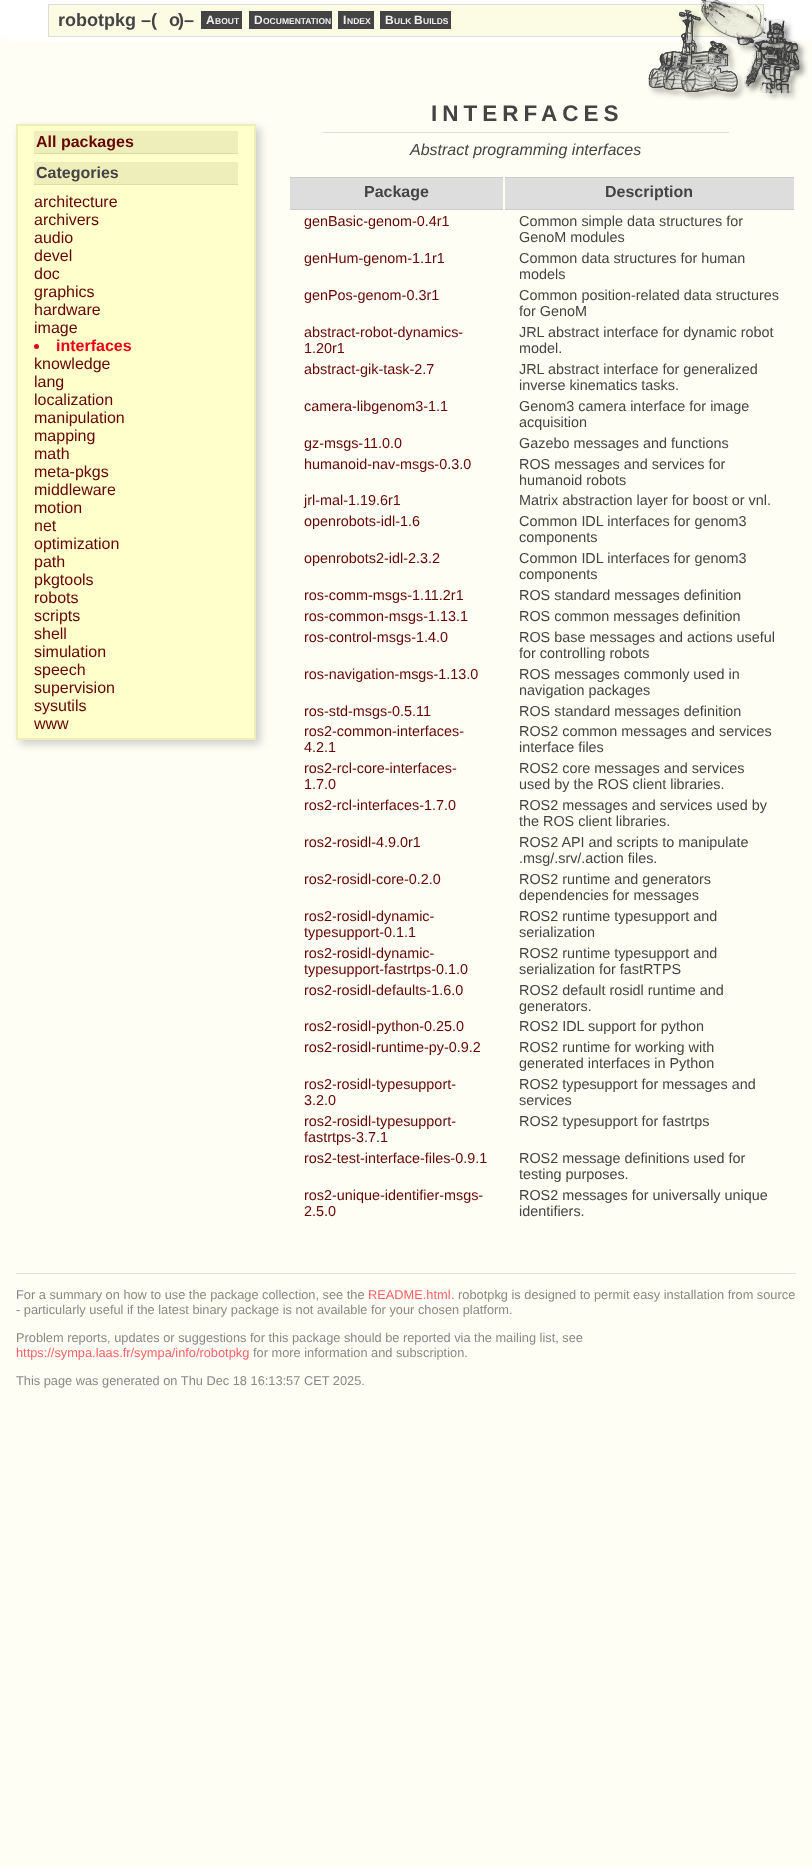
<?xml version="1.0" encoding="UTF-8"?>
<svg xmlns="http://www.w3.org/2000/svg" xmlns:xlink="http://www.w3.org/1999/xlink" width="812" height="1868">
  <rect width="100%" height="100%" fill="#fefef4" />
  <rect x="5" y="5" width="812" height="37" fill="#ffffff" filter="blur(5px)" />
  <rect width="812" height="37" fill="#ffffff" />
  <rect x="48.5" y="4.5" width="715" height="32" fill="#fcfce5" stroke="#dddddd" />
  <rect x="201" y="11" width="41" height="18" fill="#444444" />
  <rect x="249" y="11" width="83" height="18" fill="#444444" />
  <rect x="338" y="11" width="36" height="18" fill="#444444" />
  <rect x="380" y="11" width="71" height="18" fill="#444444" />
  <image x="648" y="0" width="160" height="101" xlink:href="image1.png" />
  <rect x="20" y="128" width="240" height="616" fill="#cccccc" filter="blur(4px)" />
  <rect x="17" y="125" width="238" height="614" fill="#ffffcc" stroke="#eeeebb" stroke-width="2" />
  <rect x="34" y="131" width="204" height="22" fill="#eeeebb" />
  <rect x="34" y="153" width="204" height="1" fill="#ddddaa" />
  <rect x="34" y="162" width="204" height="22" fill="#eeeebb" />
  <rect x="34" y="184" width="204" height="1" fill="#ddddaa" />
  <circle cx="36.5" cy="346.5" r="2.5" fill="#e90017" />
  <rect x="323" y="132" width="406" height="1" fill="#dddddd" />
  <rect x="290" y="178" width="213" height="31" fill="#dddddd" />
  <rect x="290" y="177" width="213" height="1" fill="#cccccc" />
  <rect x="290" y="209" width="213" height="1" fill="#cccccc" />
  <rect x="505" y="178" width="289" height="31" fill="#dddddd" />
  <rect x="505" y="177" width="289" height="1" fill="#cccccc" />
  <rect x="505" y="209" width="289" height="1" fill="#cccccc" />
  <rect x="16" y="1273" width="780" height="1" fill="#e0e0e0" />
  <text x="58" y="26" style="font-family: Liberation Sans; font-size: 18px; font-weight: bold; fill: #444444">robotpkg –(</text>
  <text x="178" y="26" style="font-family: Liberation Sans; font-size: 18px; font-weight: bold; fill: #444444">)–</text>
  <text x="169" y="26" style="font-family: Liberation Sans; font-size: 18px; font-weight: bold; fill: #444444">o</text>
  <text x="206" y="24" style="font-family: Liberation Sans; font-size: 12px; font-weight: bold; fill: #eeeeee">A</text>
  <text x="215" y="24" style="font-family: Liberation Sans; font-size: 8.5px; font-weight: bold; fill: #eeeeee">BOUT</text>
  <text x="254" y="24" style="font-family: Liberation Sans; font-size: 12px; font-weight: bold; fill: #eeeeee">D</text>
  <text x="263" y="24" style="font-family: Liberation Sans; font-size: 8.5px; font-weight: bold; fill: #eeeeee">OCUMENTATION</text>
  <text x="343" y="24" style="font-family: Liberation Sans; font-size: 12px; font-weight: bold; fill: #eeeeee">I</text>
  <text x="347" y="24" style="font-family: Liberation Sans; font-size: 8.5px; font-weight: bold; fill: #eeeeee">NDEX</text>
  <text x="385" y="24" style="font-family: Liberation Sans; font-size: 12px; font-weight: bold; fill: #eeeeee">B</text>
  <text x="394" y="24" style="font-family: Liberation Sans; font-size: 8.5px; font-weight: bold; fill: #eeeeee">ULK</text>
  <text x="414" y="24" style="font-family: Liberation Sans; font-size: 12px; font-weight: bold; fill: #eeeeee">B</text>
  <text x="423" y="24" style="font-family: Liberation Sans; font-size: 8.5px; font-weight: bold; fill: #eeeeee">UILDS</text>
  <text x="36" y="147" style="font-family: Liberation Sans; font-size: 16px; font-weight: bold; fill: #660403">All packages</text>
  <text x="36" y="178" style="font-family: Liberation Sans; font-size: 16px; font-weight: bold; fill: #444444">Categories</text>
  <text x="34" y="207" style="font-family: Liberation Sans; font-size: 16px; fill: #660403">architecture</text>
  <text x="34" y="225" style="font-family: Liberation Sans; font-size: 16px; fill: #660403">archivers</text>
  <text x="34" y="243" style="font-family: Liberation Sans; font-size: 16px; fill: #660403">audio</text>
  <text x="34" y="261" style="font-family: Liberation Sans; font-size: 16px; fill: #660403">devel</text>
  <text x="34" y="279" style="font-family: Liberation Sans; font-size: 16px; fill: #660403">doc</text>
  <text x="34" y="297" style="font-family: Liberation Sans; font-size: 16px; fill: #660403">graphics</text>
  <text x="34" y="315" style="font-family: Liberation Sans; font-size: 16px; fill: #660403">hardware</text>
  <text x="34" y="333" style="font-family: Liberation Sans; font-size: 16px; fill: #660403">image</text>
  <text x="56" y="351" style="font-family: Liberation Sans; font-size: 16px; font-weight: bold; fill: #e90017">interfaces</text>
  <text x="34" y="369" style="font-family: Liberation Sans; font-size: 16px; fill: #660403">knowledge</text>
  <text x="34" y="387" style="font-family: Liberation Sans; font-size: 16px; fill: #660403">lang</text>
  <text x="34" y="405" style="font-family: Liberation Sans; font-size: 16px; fill: #660403">localization</text>
  <text x="34" y="423" style="font-family: Liberation Sans; font-size: 16px; fill: #660403">manipulation</text>
  <text x="34" y="441" style="font-family: Liberation Sans; font-size: 16px; fill: #660403">mapping</text>
  <text x="34" y="459" style="font-family: Liberation Sans; font-size: 16px; fill: #660403">math</text>
  <text x="34" y="477" style="font-family: Liberation Sans; font-size: 16px; fill: #660403">meta-pkgs</text>
  <text x="34" y="495" style="font-family: Liberation Sans; font-size: 16px; fill: #660403">middleware</text>
  <text x="34" y="513" style="font-family: Liberation Sans; font-size: 16px; fill: #660403">motion</text>
  <text x="34" y="531" style="font-family: Liberation Sans; font-size: 16px; fill: #660403">net</text>
  <text x="34" y="549" style="font-family: Liberation Sans; font-size: 16px; fill: #660403">optimization</text>
  <text x="34" y="567" style="font-family: Liberation Sans; font-size: 16px; fill: #660403">path</text>
  <text x="34" y="585" style="font-family: Liberation Sans; font-size: 16px; fill: #660403">pkgtools</text>
  <text x="34" y="603" style="font-family: Liberation Sans; font-size: 16px; fill: #660403">robots</text>
  <text x="34" y="621" style="font-family: Liberation Sans; font-size: 16px; fill: #660403">scripts</text>
  <text x="34" y="639" style="font-family: Liberation Sans; font-size: 16px; fill: #660403">shell</text>
  <text x="34" y="657" style="font-family: Liberation Sans; font-size: 16px; fill: #660403">simulation</text>
  <text x="34" y="675" style="font-family: Liberation Sans; font-size: 16px; fill: #660403">speech</text>
  <text x="34" y="693" style="font-family: Liberation Sans; font-size: 16px; fill: #660403">supervision</text>
  <text x="34" y="711" style="font-family: Liberation Sans; font-size: 16px; fill: #660403">sysutils</text>
  <text x="34" y="729" style="font-family: Liberation Sans; font-size: 16px; fill: #660403">www</text>
  <text x="431" y="121" style="font-family: Liberation Sans; font-size: 22.5px; font-weight: bold; letter-spacing: 5px; fill: #444444">INTERFACES</text>
  <text x="410" y="155" style="font-family: Liberation Sans; font-size: 16px; font-style: italic; fill: #444444">Abstract programming interfaces</text>
  <text x="364" y="197" style="font-family: Liberation Sans; font-size: 16px; font-weight: bold; fill: #444444">Package</text>
  <text x="605" y="197" style="font-family: Liberation Sans; font-size: 16px; font-weight: bold; fill: #444444">Description</text>
  <text x="304" y="226" style="font-family: Liberation Sans; font-size: 14.4px; fill: #660403">genBasic-genom-0.4r1</text>
  <text x="519" y="226" style="font-family: Liberation Sans; font-size: 14.4px; fill: #444444">Common simple data structures for</text>
  <text x="519" y="242" style="font-family: Liberation Sans; font-size: 14.4px; fill: #444444">GenoM modules</text>
  <text x="304" y="263" style="font-family: Liberation Sans; font-size: 14.4px; fill: #660403">genHum-genom-1.1r1</text>
  <text x="519" y="263" style="font-family: Liberation Sans; font-size: 14.4px; fill: #444444">Common data structures for human</text>
  <text x="519" y="279" style="font-family: Liberation Sans; font-size: 14.4px; fill: #444444">models</text>
  <text x="304" y="300" style="font-family: Liberation Sans; font-size: 14.4px; fill: #660403">genPos-genom-0.3r1</text>
  <text x="519" y="300" style="font-family: Liberation Sans; font-size: 14.4px; fill: #444444">Common position-related data structures</text>
  <text x="519" y="316" style="font-family: Liberation Sans; font-size: 14.4px; fill: #444444">for GenoM</text>
  <text x="304" y="337" style="font-family: Liberation Sans; font-size: 14.4px; fill: #660403">abstract-robot-dynamics-</text>
  <text x="304" y="353" style="font-family: Liberation Sans; font-size: 14.4px; fill: #660403">1.20r1</text>
  <text x="519" y="337" style="font-family: Liberation Sans; font-size: 14.4px; fill: #444444">JRL abstract interface for dynamic robot</text>
  <text x="519" y="353" style="font-family: Liberation Sans; font-size: 14.4px; fill: #444444">model.</text>
  <text x="304" y="374" style="font-family: Liberation Sans; font-size: 14.4px; fill: #660403">abstract-gik-task-2.7</text>
  <text x="519" y="374" style="font-family: Liberation Sans; font-size: 14.4px; fill: #444444">JRL abstract interface for generalized</text>
  <text x="519" y="390" style="font-family: Liberation Sans; font-size: 14.4px; fill: #444444">inverse kinematics tasks.</text>
  <text x="304" y="411" style="font-family: Liberation Sans; font-size: 14.4px; fill: #660403">camera-libgenom3-1.1</text>
  <text x="519" y="411" style="font-family: Liberation Sans; font-size: 14.4px; fill: #444444">Genom3 camera interface for image</text>
  <text x="519" y="427" style="font-family: Liberation Sans; font-size: 14.4px; fill: #444444">acquisition</text>
  <text x="304" y="448" style="font-family: Liberation Sans; font-size: 14.4px; fill: #660403">gz-msgs-11.0.0</text>
  <text x="519" y="448" style="font-family: Liberation Sans; font-size: 14.4px; fill: #444444">Gazebo messages and functions</text>
  <text x="304" y="469" style="font-family: Liberation Sans; font-size: 14.4px; fill: #660403">humanoid-nav-msgs-0.3.0</text>
  <text x="519" y="469" style="font-family: Liberation Sans; font-size: 14.4px; fill: #444444">ROS messages and services for</text>
  <text x="519" y="485" style="font-family: Liberation Sans; font-size: 14.4px; fill: #444444">humanoid robots</text>
  <text x="304" y="505" style="font-family: Liberation Sans; font-size: 14.4px; fill: #660403">jrl-mal-1.19.6r1</text>
  <text x="519" y="505" style="font-family: Liberation Sans; font-size: 14.4px; fill: #444444">Matrix abstraction layer for boost or vnl.</text>
  <text x="304" y="526" style="font-family: Liberation Sans; font-size: 14.4px; fill: #660403">openrobots-idl-1.6</text>
  <text x="519" y="526" style="font-family: Liberation Sans; font-size: 14.4px; fill: #444444">Common IDL interfaces for genom3</text>
  <text x="519" y="542" style="font-family: Liberation Sans; font-size: 14.4px; fill: #444444">components</text>
  <text x="304" y="563" style="font-family: Liberation Sans; font-size: 14.4px; fill: #660403">openrobots2-idl-2.3.2</text>
  <text x="519" y="563" style="font-family: Liberation Sans; font-size: 14.4px; fill: #444444">Common IDL interfaces for genom3</text>
  <text x="519" y="579" style="font-family: Liberation Sans; font-size: 14.4px; fill: #444444">components</text>
  <text x="304" y="600" style="font-family: Liberation Sans; font-size: 14.4px; fill: #660403">ros-comm-msgs-1.11.2r1</text>
  <text x="519" y="600" style="font-family: Liberation Sans; font-size: 14.4px; fill: #444444">ROS standard messages definition</text>
  <text x="304" y="621" style="font-family: Liberation Sans; font-size: 14.4px; fill: #660403">ros-common-msgs-1.13.1</text>
  <text x="519" y="621" style="font-family: Liberation Sans; font-size: 14.4px; fill: #444444">ROS common messages definition</text>
  <text x="304" y="642" style="font-family: Liberation Sans; font-size: 14.4px; fill: #660403">ros-control-msgs-1.4.0</text>
  <text x="519" y="642" style="font-family: Liberation Sans; font-size: 14.4px; fill: #444444">ROS base messages and actions useful</text>
  <text x="519" y="658" style="font-family: Liberation Sans; font-size: 14.4px; fill: #444444">for controlling robots</text>
  <text x="304" y="679" style="font-family: Liberation Sans; font-size: 14.4px; fill: #660403">ros-navigation-msgs-1.13.0</text>
  <text x="519" y="679" style="font-family: Liberation Sans; font-size: 14.4px; fill: #444444">ROS messages commonly used in</text>
  <text x="519" y="695" style="font-family: Liberation Sans; font-size: 14.4px; fill: #444444">navigation packages</text>
  <text x="304" y="716" style="font-family: Liberation Sans; font-size: 14.4px; fill: #660403">ros-std-msgs-0.5.11</text>
  <text x="519" y="716" style="font-family: Liberation Sans; font-size: 14.4px; fill: #444444">ROS standard messages definition</text>
  <text x="304" y="736" style="font-family: Liberation Sans; font-size: 14.4px; fill: #660403">ros2-common-interfaces-</text>
  <text x="304" y="752" style="font-family: Liberation Sans; font-size: 14.4px; fill: #660403">4.2.1</text>
  <text x="519" y="736" style="font-family: Liberation Sans; font-size: 14.4px; fill: #444444">ROS2 common messages and services</text>
  <text x="519" y="752" style="font-family: Liberation Sans; font-size: 14.4px; fill: #444444">interface files</text>
  <text x="304" y="773" style="font-family: Liberation Sans; font-size: 14.4px; fill: #660403">ros2-rcl-core-interfaces-</text>
  <text x="304" y="789" style="font-family: Liberation Sans; font-size: 14.4px; fill: #660403">1.7.0</text>
  <text x="519" y="773" style="font-family: Liberation Sans; font-size: 14.4px; fill: #444444">ROS2 core messages and services</text>
  <text x="519" y="789" style="font-family: Liberation Sans; font-size: 14.4px; fill: #444444">used by the ROS client libraries.</text>
  <text x="304" y="810" style="font-family: Liberation Sans; font-size: 14.4px; fill: #660403">ros2-rcl-interfaces-1.7.0</text>
  <text x="519" y="810" style="font-family: Liberation Sans; font-size: 14.4px; fill: #444444">ROS2 messages and services used by</text>
  <text x="519" y="826" style="font-family: Liberation Sans; font-size: 14.4px; fill: #444444">the ROS client libraries.</text>
  <text x="304" y="847" style="font-family: Liberation Sans; font-size: 14.4px; fill: #660403">ros2-rosidl-4.9.0r1</text>
  <text x="519" y="847" style="font-family: Liberation Sans; font-size: 14.4px; fill: #444444">ROS2 API and scripts to manipulate</text>
  <text x="519" y="863" style="font-family: Liberation Sans; font-size: 14.4px; fill: #444444">.msg/.srv/.action files.</text>
  <text x="304" y="884" style="font-family: Liberation Sans; font-size: 14.4px; fill: #660403">ros2-rosidl-core-0.2.0</text>
  <text x="519" y="884" style="font-family: Liberation Sans; font-size: 14.4px; fill: #444444">ROS2 runtime and generators</text>
  <text x="519" y="900" style="font-family: Liberation Sans; font-size: 14.4px; fill: #444444">dependencies for messages</text>
  <text x="304" y="921" style="font-family: Liberation Sans; font-size: 14.4px; fill: #660403">ros2-rosidl-dynamic-</text>
  <text x="304" y="937" style="font-family: Liberation Sans; font-size: 14.4px; fill: #660403">typesupport-0.1.1</text>
  <text x="519" y="921" style="font-family: Liberation Sans; font-size: 14.4px; fill: #444444">ROS2 runtime typesupport and</text>
  <text x="519" y="937" style="font-family: Liberation Sans; font-size: 14.4px; fill: #444444">serialization</text>
  <text x="304" y="958" style="font-family: Liberation Sans; font-size: 14.4px; fill: #660403">ros2-rosidl-dynamic-</text>
  <text x="304" y="974" style="font-family: Liberation Sans; font-size: 14.4px; fill: #660403">typesupport-fastrtps-0.1.0</text>
  <text x="519" y="958" style="font-family: Liberation Sans; font-size: 14.4px; fill: #444444">ROS2 runtime typesupport and</text>
  <text x="519" y="974" style="font-family: Liberation Sans; font-size: 14.4px; fill: #444444">serialization for fastRTPS</text>
  <text x="304" y="995" style="font-family: Liberation Sans; font-size: 14.4px; fill: #660403">ros2-rosidl-defaults-1.6.0</text>
  <text x="519" y="995" style="font-family: Liberation Sans; font-size: 14.4px; fill: #444444">ROS2 default rosidl runtime and</text>
  <text x="519" y="1011" style="font-family: Liberation Sans; font-size: 14.4px; fill: #444444">generators.</text>
  <text x="304" y="1031" style="font-family: Liberation Sans; font-size: 14.4px; fill: #660403">ros2-rosidl-python-0.25.0</text>
  <text x="519" y="1031" style="font-family: Liberation Sans; font-size: 14.4px; fill: #444444">ROS2 IDL support for python</text>
  <text x="304" y="1052" style="font-family: Liberation Sans; font-size: 14.4px; fill: #660403">ros2-rosidl-runtime-py-0.9.2</text>
  <text x="519" y="1052" style="font-family: Liberation Sans; font-size: 14.4px; fill: #444444">ROS2 runtime for working with</text>
  <text x="519" y="1068" style="font-family: Liberation Sans; font-size: 14.4px; fill: #444444">generated interfaces in Python</text>
  <text x="304" y="1089" style="font-family: Liberation Sans; font-size: 14.4px; fill: #660403">ros2-rosidl-typesupport-</text>
  <text x="304" y="1105" style="font-family: Liberation Sans; font-size: 14.4px; fill: #660403">3.2.0</text>
  <text x="519" y="1089" style="font-family: Liberation Sans; font-size: 14.4px; fill: #444444">ROS2 typesupport for messages and</text>
  <text x="519" y="1105" style="font-family: Liberation Sans; font-size: 14.4px; fill: #444444">services</text>
  <text x="304" y="1126" style="font-family: Liberation Sans; font-size: 14.4px; fill: #660403">ros2-rosidl-typesupport-</text>
  <text x="304" y="1142" style="font-family: Liberation Sans; font-size: 14.4px; fill: #660403">fastrtps-3.7.1</text>
  <text x="519" y="1126" style="font-family: Liberation Sans; font-size: 14.4px; fill: #444444">ROS2 typesupport for fastrtps</text>
  <text x="304" y="1163" style="font-family: Liberation Sans; font-size: 14.4px; fill: #660403">ros2-test-interface-files-0.9.1</text>
  <text x="519" y="1163" style="font-family: Liberation Sans; font-size: 14.4px; fill: #444444">ROS2 message definitions used for</text>
  <text x="519" y="1179" style="font-family: Liberation Sans; font-size: 14.4px; fill: #444444">testing purposes.</text>
  <text x="304" y="1200" style="font-family: Liberation Sans; font-size: 14.4px; fill: #660403">ros2-unique-identifier-msgs-</text>
  <text x="304" y="1216" style="font-family: Liberation Sans; font-size: 14.4px; fill: #660403">2.5.0</text>
  <text x="519" y="1200" style="font-family: Liberation Sans; font-size: 14.4px; fill: #444444">ROS2 messages for universally unique</text>
  <text x="519" y="1216" style="font-family: Liberation Sans; font-size: 14.4px; fill: #444444">identifiers.</text>
  <text x="16" y="1299" style="font-family: Liberation Sans; font-size: 12.8px; fill: #888888">For a summary on how to use the package collection, see the</text>
  <text x="368" y="1299" style="font-family: Liberation Sans; font-size: 12.8px; fill: #ff6068">README.html</text>
  <text x="451" y="1299" style="font-family: Liberation Sans; font-size: 12.8px; fill: #888888">. robotpkg is designed to permit easy installation from source</text>
  <text x="16" y="1314" style="font-family: Liberation Sans; font-size: 12.8px; fill: #888888">- particularly useful if the latest binary package is not available for your chosen platform.</text>
  <text x="16" y="1342" style="font-family: Liberation Sans; font-size: 12.8px; fill: #888888">Problem reports, updates or suggestions for this package should be reported via the mailing list, see</text>
  <text x="16" y="1357" style="font-family: Liberation Sans; font-size: 12.8px; fill: #ff6068">https://sympa.laas.fr/sympa/info/robotpkg</text>
  <text x="253" y="1357" style="font-family: Liberation Sans; font-size: 12.8px; fill: #888888">for more information and subscription.</text>
  <text x="16" y="1385" style="font-family: Liberation Sans; font-size: 12.8px; fill: #888888">This page was generated on Thu Dec 18 16:13:57 CET 2025.</text>
</svg>
